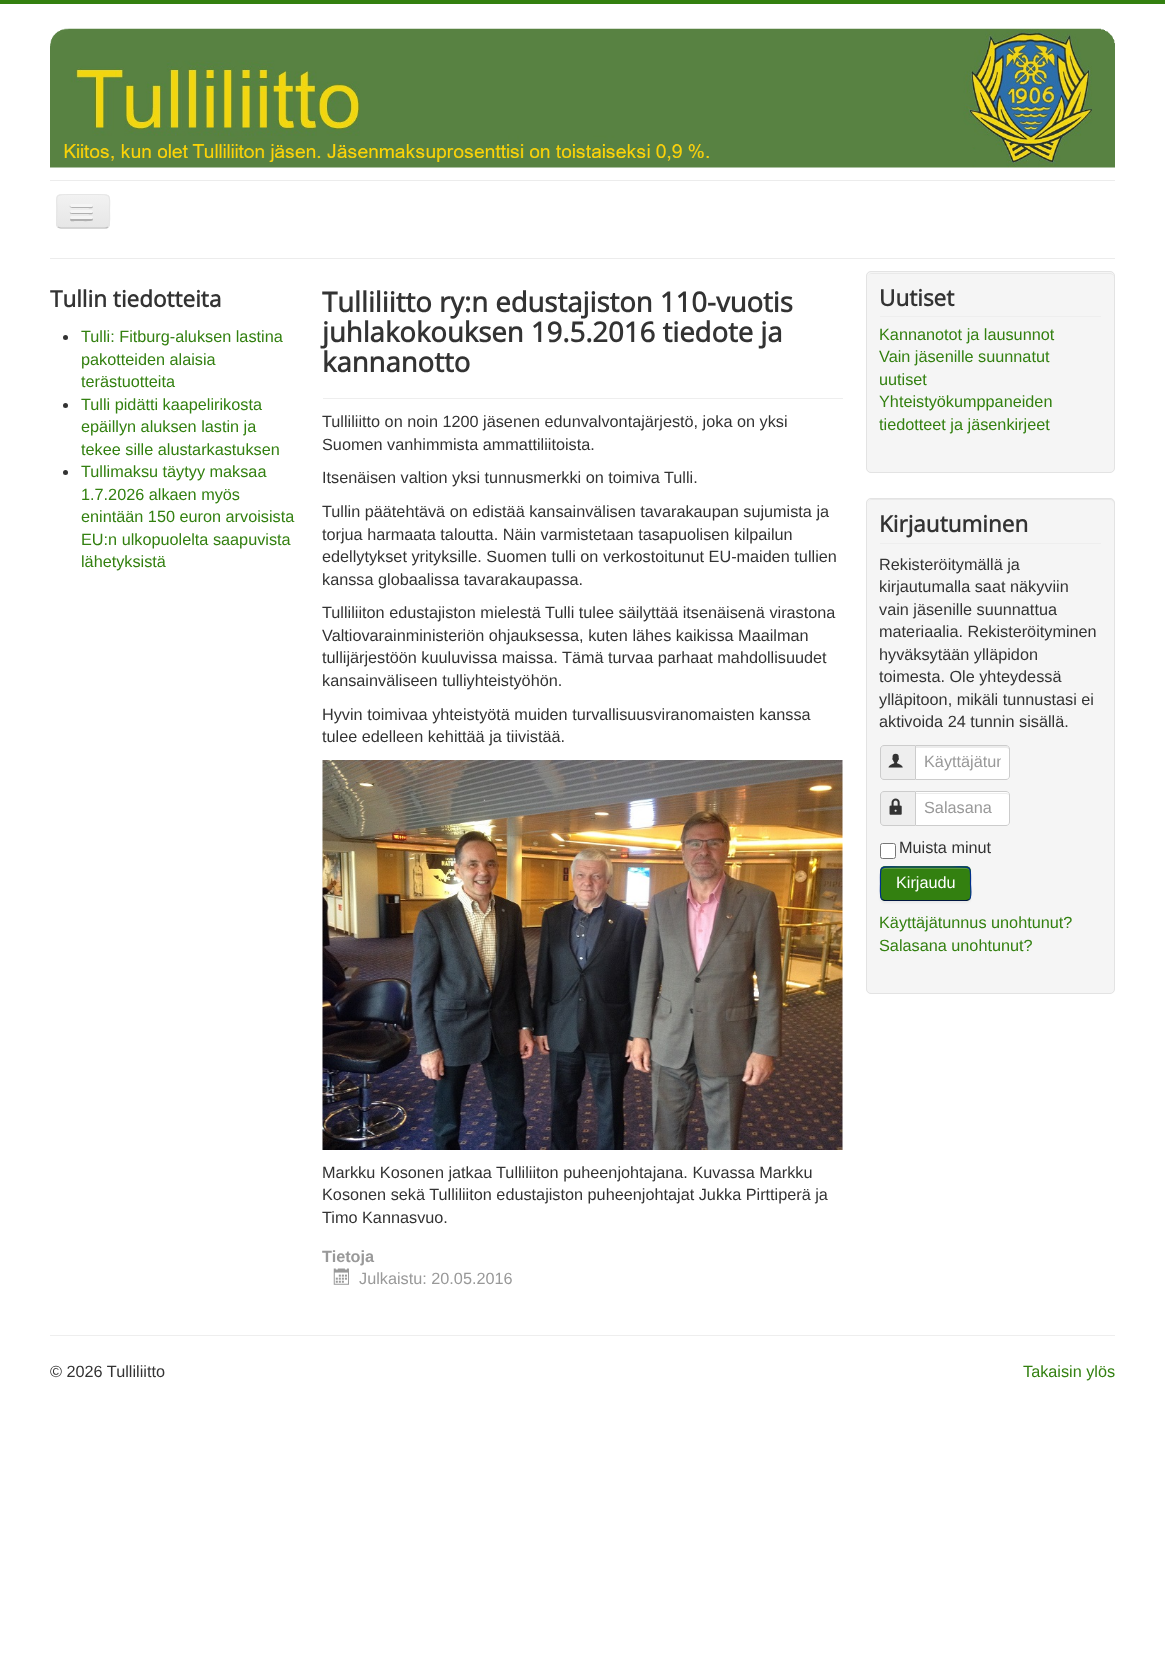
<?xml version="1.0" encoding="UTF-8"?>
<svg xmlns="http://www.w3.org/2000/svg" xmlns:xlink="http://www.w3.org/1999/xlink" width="1165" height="1672">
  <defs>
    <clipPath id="clip1"><rect x="56" y="194" width="54" height="35" rx="5" /></clipPath>
    <linearGradient id="g1" gradientUnits="userSpaceOnUse" x1="83" y1="195" x2="83" y2="228"><stop offset="0" stop-color="#f2f2f2" /><stop offset="1" stop-color="#e6e6e6" /></linearGradient>
    <clipPath id="clip2"><rect x="924" y="753" width="77" height="18" /></clipPath>
  </defs>
  <rect width="100%" height="100%" fill="#ffffff" />
  <rect width="1165" height="4" fill="#338010" />
  <image x="50" y="28" width="1065" height="140" xlink:href="image1.png" />
  <rect x="50" y="180" width="1065" height="1" fill="#ececec" />
  <rect x="50" y="258" width="1065" height="1" fill="#ececec" />
  <rect x="56" y="194" width="54" height="35" rx="5" fill="#ededed" />
  <g clip-path="url(#clip1)">
    <rect x="56" y="195" width="54" height="33" fill="url(#g1)" />
  </g>
  <path d="M 108 227 c -0.5 0.5 -2 1 -3 1 h -44 c -1 0 -2 -0.5 -3 -1" fill="none" stroke="#bfbfbf" stroke-width="1.2" />
  <path d="M 58 227 c -2.5 -2.5 -1 -12.5 -1 -16 c 0 -15.5 -3.5 -16.5 11.5 -16.5 h 29 c 15 0 12 1 12 16.5 c 0 3.5 1 13.5 -1.5 16" fill="none" stroke="#e6e6e6" stroke-width="1.2" />
  <path d="M 70 205.5 c -1.5 3 4.5 2.5 5 2.5 h 13 c 1 0 4.5 1 5 -1 c 0 -0.5 0 -1.5 -0.5 -1.5 l -1 0.5 h -20.5 z" fill="#b2b2b2" />
  <rect x="70" y="204" width="23" height="3" rx="1.5" fill="#f5f5f5" />
  <path d="M 70 212 c -1 2.5 4 2 5 2 h 13 c 1 0 4.5 1 5 -1 c 0 -0.5 0 -1.5 -0.5 -1.5 c 0 0.5 -0.5 1 -1.5 1 h -20 c 0 0 -0.5 -0.5 -1 -0.5 z" fill="#b0b0b0" />
  <rect x="70" y="210" width="23" height="3" rx="1.5" fill="#f5f5f5" />
  <path d="M 70.5 218.5 l -0.5 1.5 c 0.5 2 4 1 5 1 h 3 c 2 0 13.5 0.5 14.5 -0.5 c 0.5 -0.5 0.5 -1.5 0 -2.5 l -1 0.5 c -2 0.5 -20.5 0.5 -21 0 z" fill="#afafaf" />
  <rect x="70" y="216" width="23" height="3" rx="1.5" fill="#f5f5f5" />
  <circle cx="65.5" cy="337.5" r="2.5" fill="#333333" />
  <circle cx="65.5" cy="405.5" r="2.5" fill="#333333" />
  <circle cx="65.5" cy="472.5" r="2.5" fill="#333333" />
  <rect x="323" y="398" width="520" height="1" fill="#eeeeee" />
  <image x="322" y="760" width="521" height="390" xlink:href="image2.png" />
  <image x="333" y="1268" width="16" height="17" xlink:href="image3.png" />
  <rect x="866" y="271" width="249" height="202" rx="5" fill="#f5f5f5" />
  <path d="M 871 274 h 239 c 2 0 4 1 4 4 v -1 c 0 -2 -2 -4 -4 -4 h -238 c -2 0 -4 2 -4 4 v 1 c 0 -3 1 -4 3 -4 z" fill="#e9e9e9" />
  <rect x="866.5" y="271.5" width="248" height="201" rx="4.5" fill="none" stroke="#e3e3e3" />
  <rect x="880" y="316" width="221" height="1" fill="#eeeeee" />
  <rect x="866" y="498" width="249" height="496" rx="5" fill="#f5f5f5" />
  <path d="M 871 500 h 239 c 2 0 4 2 4 4 v -1 c 0 -2 -2 -4 -4 -4 h -238 c -2 0 -4 2 -4 4 v 1 c 0 -2 1 -4 3 -4 z" fill="#e9e9e9" />
  <rect x="866.5" y="498.5" width="248" height="495" rx="4.5" fill="none" stroke="#e3e3e3" />
  <rect x="880" y="543" width="221" height="1" fill="#eeeeee" />
  <path d="M 884 745.5 h 31.5 v 34 h -31.5 c -2 0 -3.5 -1.5 -3.5 -3.5 v -27 c 0 -2 1.5 -3.5 3.5 -3.5 z" fill="#eeeeee" stroke="#cccccc" />
  <image x="888" y="753" width="15" height="15" xlink:href="image4.png" />
  <path d="M 915 745 h 91 c 2 0 4 2 4 4 v 27 c 0 2 -2 4 -4 4 h -91 z" fill="#ffffff" />
  <path d="M 916 748 h 90 c 2 0 3 1 3 2 v -2 c 0 -1 -1 -2 -3 -2 h -90 z" fill="#ececec" />
  <path d="M 915.5 745.5 h 90.5 c 2 0 3.5 1.5 3.5 3.5 v 27 c 0 2 -1.5 3.5 -3.5 3.5 h -90.5 z" fill="none" stroke="#cccccc" />
  <path d="M 884 791.5 h 31.5 v 34 h -31.5 c -2 0 -3.5 -1.5 -3.5 -3.5 v -27 c 0 -2 1.5 -3.5 3.5 -3.5 z" fill="#eeeeee" stroke="#cccccc" />
  <image x="889" y="798" width="13" height="17" xlink:href="image5.png" />
  <path d="M 915 791 h 91 c 2 0 4 2 4 4 v 27 c 0 2 -2 4 -4 4 h -91 z" fill="#ffffff" />
  <path d="M 916 794 h 90 c 2 0 3 1 3 2 c 0 -2 -1 -3 -3 -3 h -90 z" fill="#ececec" />
  <path d="M 915.5 791.5 h 90.5 c 2 0 3.5 1.5 3.5 3.5 v 27 c 0 2 -1.5 3.5 -3.5 3.5 h -90.5 z" fill="none" stroke="#cccccc" />
  <rect x="880.5" y="843.5" width="15" height="15" rx="2" fill="#ffffff" stroke="#767676" />
  <rect x="880" y="868" width="91" height="35" rx="5" fill="#000000" fill-opacity="0.05" filter="blur(1px)" />
  <rect x="880" y="866" width="91" height="35" rx="5" fill="#338010" />
  <path d="M 885 869 h 81 c 2 0 4 1 4 3 c 0 -2 -2 -4 -4 -4 h -81 c -2 0 -4 2 -4 4 c 0 -2 2 -3 4 -3 z" fill="#5c9940" />
  <path d="M 969.5 899.5 l -3 1 h -82 l -2.5 -1" fill="none" stroke="#001641" stroke-width="1.2" />
  <path d="M 882 899.5 c -2.5 -2.5 -1.5 -12.5 -1.5 -15.5 c 0 -19.5 -2.5 -17 18 -17 h 54 c 20.5 0 18 -2.5 18 17 c 0 3 1.5 13 -1 15.5" fill="none" stroke="#002f8d" stroke-width="1.2" />
  <rect x="50" y="1335" width="1065" height="1" fill="#eeeeee" />
  <text x="50" y="307" style="font-family: Open Sans; font-size: 22.5px; font-weight: bold; fill: #333333">Tullin tiedotteita</text>
  <text x="81" y="342" style="font-family: Liberation Sans; font-size: 16.25px; fill: #338010">Tulli: Fitburg-aluksen lastina</text>
  <text x="81" y="365" style="font-family: Liberation Sans; font-size: 16.25px; fill: #338010">pakotteiden alaisia</text>
  <text x="81" y="387" style="font-family: Liberation Sans; font-size: 16.25px; fill: #338010">terästuotteita</text>
  <text x="81" y="410" style="font-family: Liberation Sans; font-size: 16.25px; fill: #338010">Tulli pidätti kaapelirikosta</text>
  <text x="81" y="432" style="font-family: Liberation Sans; font-size: 16.25px; fill: #338010">epäillyn aluksen lastin ja</text>
  <text x="81" y="455" style="font-family: Liberation Sans; font-size: 16.25px; fill: #338010">tekee sille alustarkastuksen</text>
  <text x="81" y="477" style="font-family: Liberation Sans; font-size: 16.25px; fill: #338010">Tullimaksu täytyy maksaa</text>
  <text x="81" y="500" style="font-family: Liberation Sans; font-size: 16.25px; fill: #338010">1.7.2026 alkaen myös</text>
  <text x="81" y="522" style="font-family: Liberation Sans; font-size: 16.25px; fill: #338010">enintään 150 euron arvoisista</text>
  <text x="81" y="545" style="font-family: Liberation Sans; font-size: 16.25px; fill: #338010">EU:n ulkopuolelta saapuvista</text>
  <text x="81" y="567" style="font-family: Liberation Sans; font-size: 16.25px; fill: #338010">lähetyksistä</text>
  <text x="322" y="312" style="font-family: Open Sans; font-size: 27.5px; font-weight: bold; fill: #333333">Tulliliitto ry:n edustajiston 110-vuotis</text>
  <text x="322" y="342" style="font-family: Open Sans; font-size: 27.5px; font-weight: bold; fill: #333333">juhlakokouksen 19.5.2016 tiedote ja</text>
  <text x="322" y="372" style="font-family: Open Sans; font-size: 27.5px; font-weight: bold; fill: #333333">kannanotto</text>
  <text x="322" y="427" style="font-family: Liberation Sans; font-size: 16.25px; fill: #333333">Tulliliitto on noin 1200 jäsenen edunvalvontajärjestö, joka on yksi</text>
  <text x="322" y="450" style="font-family: Liberation Sans; font-size: 16.25px; fill: #333333">Suomen vanhimmista ammattiliitoista.</text>
  <text x="322" y="483" style="font-family: Liberation Sans; font-size: 16.25px; fill: #333333">Itsenäisen valtion yksi tunnusmerkki on toimiva Tulli.</text>
  <text x="322" y="517" style="font-family: Liberation Sans; font-size: 16.25px; fill: #333333">Tullin päätehtävä on edistää kansainvälisen tavarakaupan sujumista ja</text>
  <text x="322" y="540" style="font-family: Liberation Sans; font-size: 16.25px; fill: #333333">torjua harmaata taloutta. Näin varmistetaan tasapuolisen kilpailun</text>
  <text x="322" y="562" style="font-family: Liberation Sans; font-size: 16.25px; fill: #333333">edellytykset yrityksille. Suomen tulli on verkostoitunut EU-maiden tullien</text>
  <text x="322" y="585" style="font-family: Liberation Sans; font-size: 16.25px; fill: #333333">kanssa globaalissa tavarakaupassa.</text>
  <text x="322" y="618" style="font-family: Liberation Sans; font-size: 16.25px; fill: #333333">Tulliliiton edustajiston mielestä Tulli tulee säilyttää itsenäisenä virastona</text>
  <text x="322" y="641" style="font-family: Liberation Sans; font-size: 16.25px; fill: #333333">Valtiovarainministeriön ohjauksessa, kuten lähes kaikissa Maailman</text>
  <text x="322" y="663" style="font-family: Liberation Sans; font-size: 16.25px; fill: #333333">tullijärjestöön kuuluvissa maissa. Tämä turvaa parhaat mahdollisuudet</text>
  <text x="322" y="686" style="font-family: Liberation Sans; font-size: 16.25px; fill: #333333">kansainväliseen tulliyhteistyöhön.</text>
  <text x="322" y="720" style="font-family: Liberation Sans; font-size: 16.25px; fill: #333333">Hyvin toimivaa yhteistyötä muiden turvallisuusviranomaisten kanssa</text>
  <text x="322" y="742" style="font-family: Liberation Sans; font-size: 16.25px; fill: #333333">tulee edelleen kehittää ja tiivistää.</text>
  <text x="322" y="1178" style="font-family: Liberation Sans; font-size: 16.25px; fill: #333333">Markku Kosonen jatkaa Tulliliiton puheenjohtajana. Kuvassa Markku</text>
  <text x="322" y="1200" style="font-family: Liberation Sans; font-size: 16.25px; fill: #333333">Kosonen sekä Tulliliiton edustajiston puheenjohtajat Jukka Pirttiperä ja</text>
  <text x="322" y="1223" style="font-family: Liberation Sans; font-size: 16.25px; fill: #333333">Timo Kannasvuo.</text>
  <text x="322" y="1262" style="font-family: Liberation Sans; font-size: 16.25px; font-weight: bold; fill: #999999">Tietoja</text>
  <text x="359" y="1284" style="font-family: Liberation Sans; font-size: 16.25px; fill: #999999">Julkaistu: 20.05.2016</text>
  <text x="879" y="306" style="font-family: Open Sans; font-size: 22.5px; font-weight: bold; fill: #333333">Uutiset</text>
  <text x="879" y="340" style="font-family: Liberation Sans; font-size: 16.25px; fill: #338010">Kannanotot ja lausunnot</text>
  <text x="879" y="362" style="font-family: Liberation Sans; font-size: 16.25px; fill: #338010">Vain jäsenille suunnatut</text>
  <text x="879" y="385" style="font-family: Liberation Sans; font-size: 16.25px; fill: #338010">uutiset</text>
  <text x="879" y="407" style="font-family: Liberation Sans; font-size: 16.25px; fill: #338010">Yhteistyökumppaneiden</text>
  <text x="879" y="430" style="font-family: Liberation Sans; font-size: 16.25px; fill: #338010">tiedotteet ja jäsenkirjeet</text>
  <text x="879" y="532" style="font-family: Open Sans; font-size: 22.5px; font-weight: bold; fill: #333333">Kirjautuminen</text>
  <text x="879" y="570" style="font-family: Liberation Sans; font-size: 16.25px; fill: #333333">Rekisteröitymällä ja</text>
  <text x="879" y="592" style="font-family: Liberation Sans; font-size: 16.25px; fill: #333333">kirjautumalla saat näkyviin</text>
  <text x="879" y="615" style="font-family: Liberation Sans; font-size: 16.25px; fill: #333333">vain jäsenille suunnattua</text>
  <text x="879" y="637" style="font-family: Liberation Sans; font-size: 16.25px; fill: #333333">materiaalia. Rekisteröityminen</text>
  <text x="879" y="660" style="font-family: Liberation Sans; font-size: 16.25px; fill: #333333">hyväksytään ylläpidon</text>
  <text x="879" y="682" style="font-family: Liberation Sans; font-size: 16.25px; fill: #333333">toimesta. Ole yhteydessä</text>
  <text x="879" y="705" style="font-family: Liberation Sans; font-size: 16.25px; fill: #333333">ylläpitoon, mikäli tunnustasi ei</text>
  <text x="879" y="727" style="font-family: Liberation Sans; font-size: 16.25px; fill: #333333">aktivoida 24 tunnin sisällä.</text>
  <g clip-path="url(#clip2)">
    <text x="924" y="767" style="font-family: Liberation Sans; font-size: 16.25px; fill: #999999">Käyttäjätun</text>
  </g>
  <text x="924" y="813" style="font-family: Liberation Sans; font-size: 16.25px; fill: #999999">Salasana</text>
  <text x="899" y="853" style="font-family: Liberation Sans; font-size: 16.25px; fill: #333333">Muista minut</text>
  <text x="896" y="888" style="font-family: Liberation Sans; font-size: 16.25px; fill: #ffffff">Kirjaudu</text>
  <text x="879" y="928" style="font-family: Liberation Sans; font-size: 16.25px; fill: #338010">Käyttäjätunnus unohtunut?</text>
  <text x="879" y="951" style="font-family: Liberation Sans; font-size: 16.25px; fill: #338010">Salasana unohtunut?</text>
  <text x="50" y="1377" style="font-family: Liberation Sans; font-size: 16.25px; fill: #333333">© 2026 Tulliliitto</text>
  <text x="1023" y="1377" style="font-family: Liberation Sans; font-size: 16.25px; fill: #338010">Takaisin ylös</text>
</svg>
